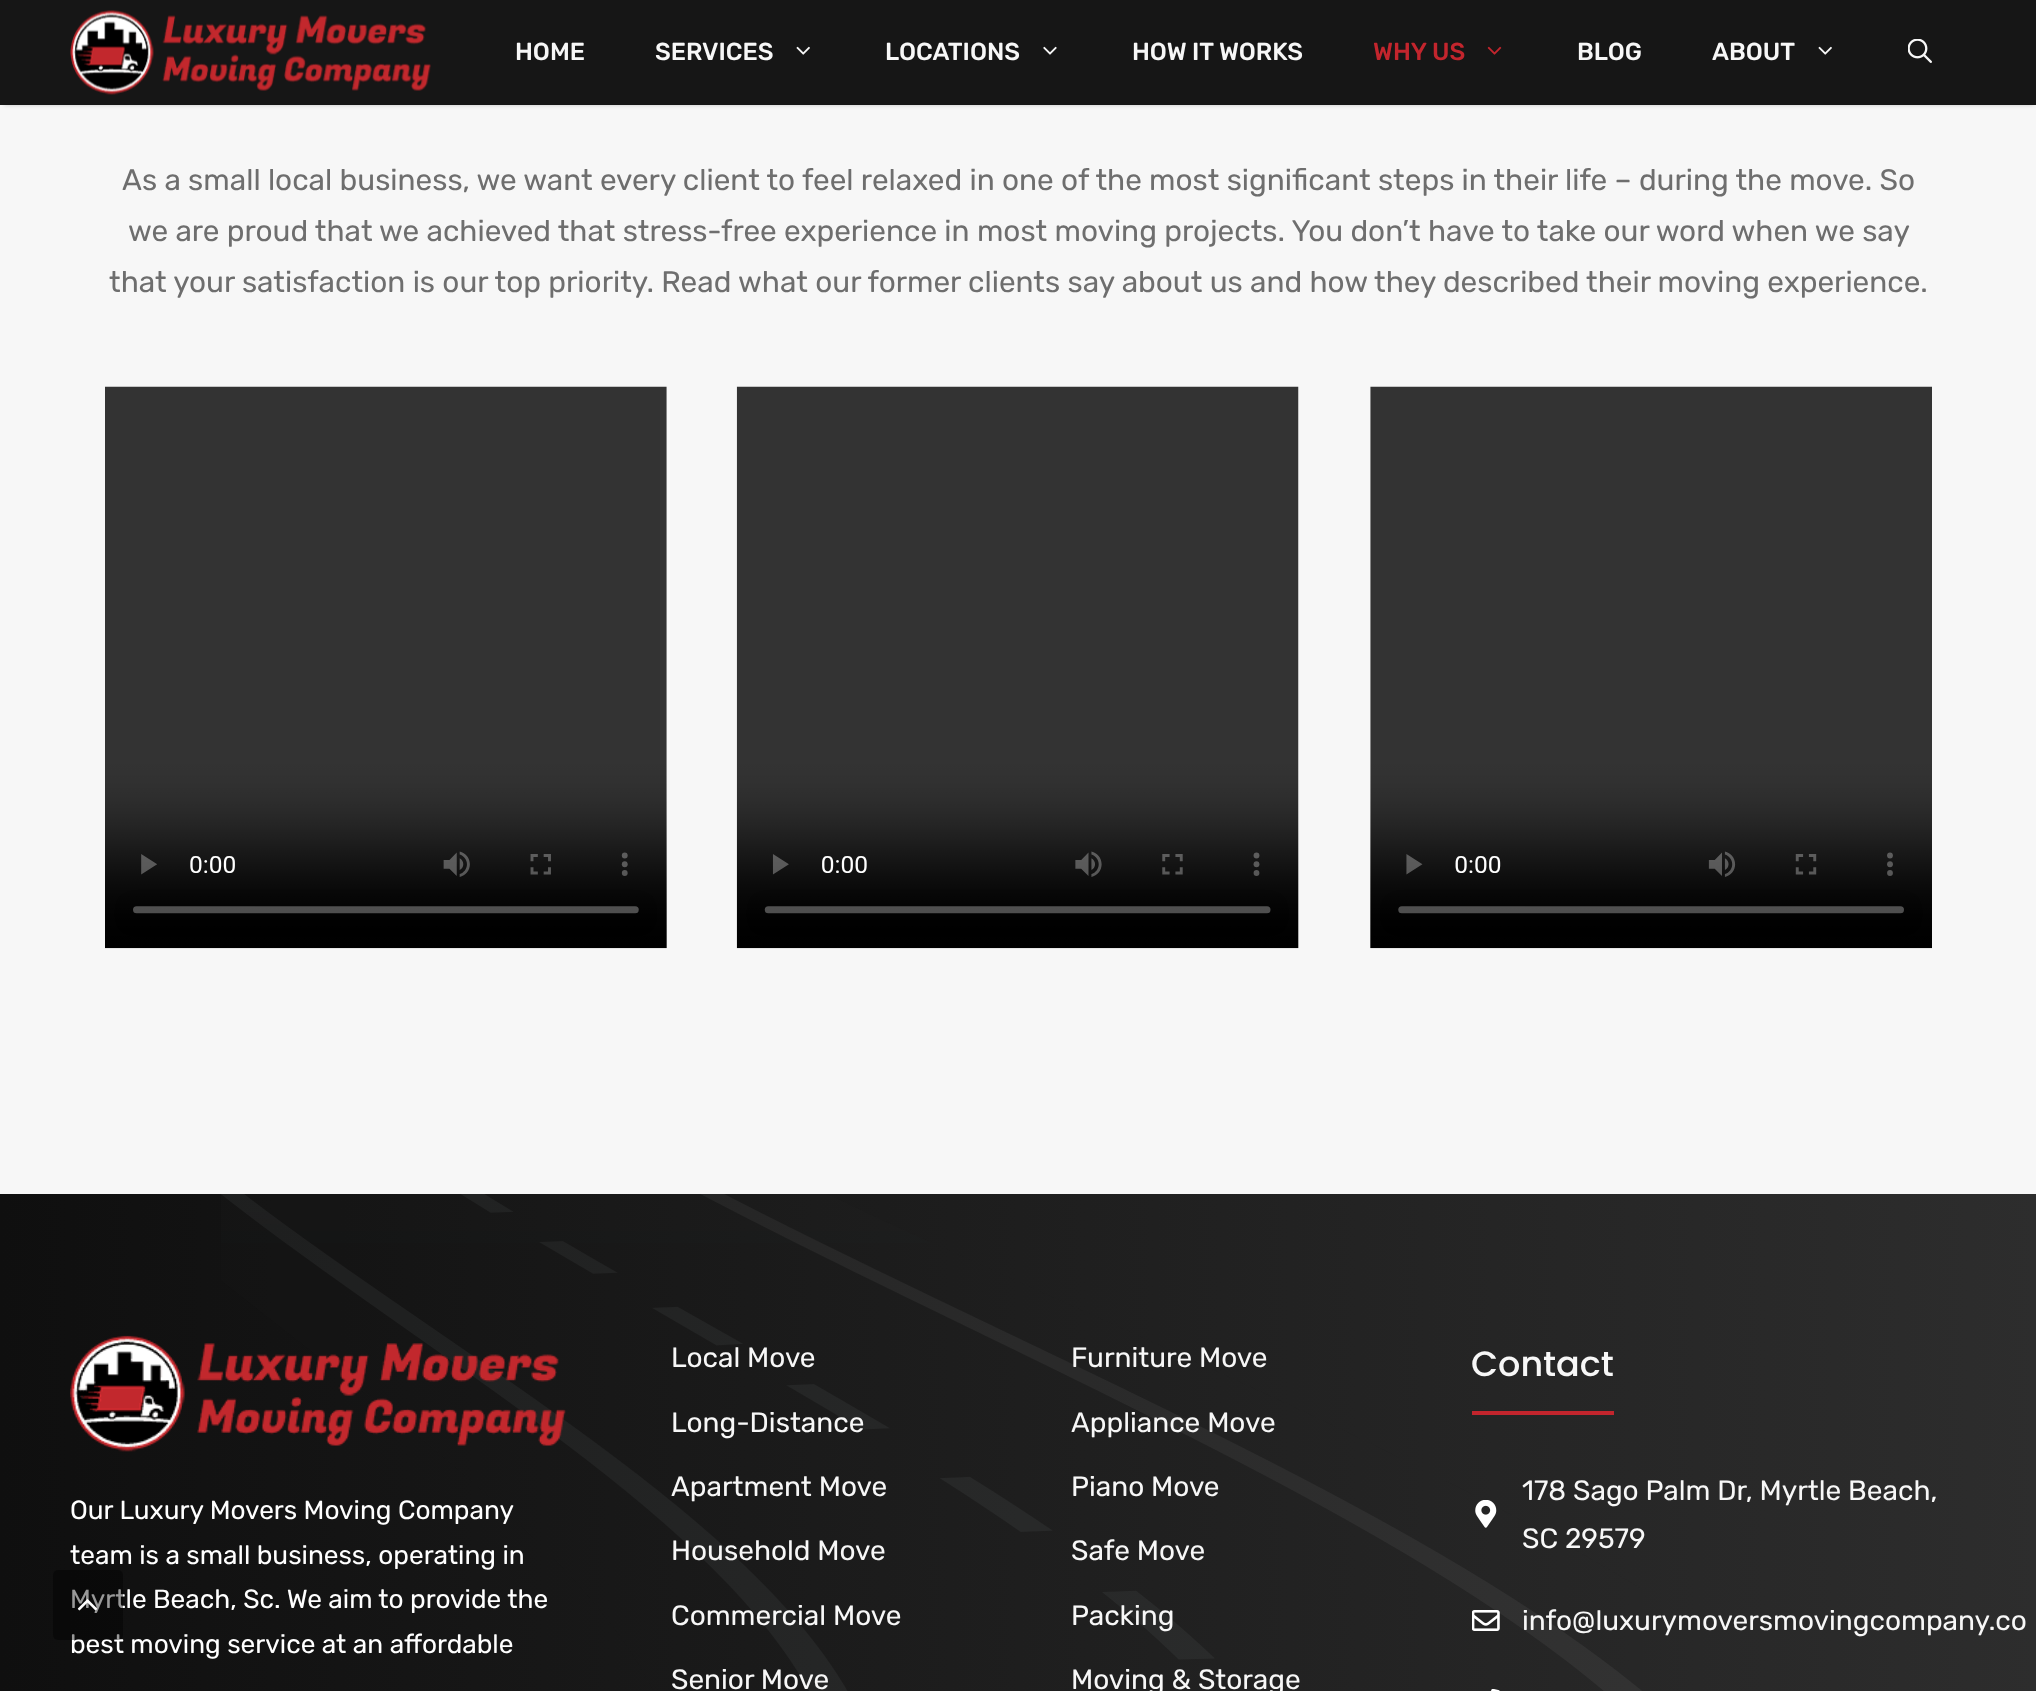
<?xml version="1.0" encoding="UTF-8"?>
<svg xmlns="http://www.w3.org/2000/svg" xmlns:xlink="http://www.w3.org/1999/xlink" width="2036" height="1691">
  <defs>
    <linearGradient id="g1" gradientUnits="userSpaceOnUse" x1="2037" y1="1623" x2="0" y2="1623"><stop offset="0" stop-color="#2d2d2d" /><stop offset="1" stop-color="#0f0f0f" /></linearGradient>
  </defs>
  <rect width="100%" height="100%" fill="#f7f7f7" />
  <rect x="4" y="7" width="2030" height="98" fill="#000000" fill-opacity="0.2" filter="blur(2px)" />
  <rect width="2036" height="105" fill="#161616" />
  <image x="70" y="10" width="361" height="85" xlink:href="image1.png" />
  <image x="796" y="46" width="14" height="9" xlink:href="image2.png" />
  <image x="1043" y="46" width="14" height="9" xlink:href="image3.png" />
  <image x="1487" y="46" width="15" height="9" xlink:href="image4.png" />
  <image x="1818" y="46" width="14" height="9" xlink:href="image2.png" />
  <image x="1908" y="39" width="24" height="24" xlink:href="image5.png" />
  <image x="105" y="386" width="562" height="563" xlink:href="image6.png" />
  <image x="736" y="386" width="563" height="563" xlink:href="image7.png" />
  <image x="1370" y="386" width="562" height="563" xlink:href="image8.png" />
  <rect y="1194" width="2036" height="497" fill="url(#g1)" />
  <image x="221" y="1194" width="1421" height="497" xlink:href="image9.png" />
  <image x="70" y="1335" width="496" height="117" xlink:href="image10.png" />
  <rect x="1472" y="1411" width="142" height="4" fill="#c3252d" />
  <image x="1475" y="1500" width="22" height="28" xlink:href="image11.png" />
  <image x="1472" y="1610" width="28" height="21" xlink:href="image12.png" />
  <image x="1491" y="1689" width="9" height="2" xlink:href="image13.png" />
  <text x="515" y="60" style="font-family: Rubik; font-size: 24.5px; font-weight: 500; fill: #f7f7f7">HOME</text>
  <text x="655" y="60" style="font-family: Rubik; font-size: 24.5px; font-weight: 500; fill: #f7f7f7">SERVICES</text>
  <text x="885" y="60" style="font-family: Rubik; font-size: 24.5px; font-weight: 500; fill: #f7f7f7">LOCATIONS</text>
  <text x="1132" y="60" style="font-family: Rubik; font-size: 24.5px; font-weight: 500; fill: #f7f7f7">HOW IT WORKS</text>
  <text x="1373" y="60" style="font-family: Rubik; font-size: 24.5px; font-weight: 500; fill: #c3252d">WHY US</text>
  <text x="1577" y="60" style="font-family: Rubik; font-size: 24.5px; font-weight: 500; fill: #f7f7f7">BLOG</text>
  <text x="1712" y="60" style="font-family: Rubik; font-size: 24.5px; font-weight: 500; fill: #f7f7f7">ABOUT</text>
  <text x="122" y="190" style="font-family: Rubik; font-size: 29.75px; fill: #6e6e6e">As a small local business, we want every client to feel relaxed in one of the most significant steps in their life – during the move. So</text>
  <text x="128" y="241" style="font-family: Rubik; font-size: 29.75px; fill: #6e6e6e">we are proud that we achieved that stress-free experience in most moving projects. You don’t have to take our word when we say</text>
  <text x="109" y="292" style="font-family: Rubik; font-size: 29.75px; fill: #6e6e6e">that your satisfaction is our top priority. Read what our former clients say about us and how they described their moving experience.</text>
  <text x="70" y="1519" style="font-family: Rubik; font-size: 26.25px; fill: #ffffff">Our Luxury Movers Moving Company</text>
  <text x="70" y="1564" style="font-family: Rubik; font-size: 26.25px; fill: #ffffff">team is a small business, operating in</text>
  <text x="70" y="1608" style="font-family: Rubik; font-size: 26.25px; fill: #ffffff">Myrtle Beach, Sc. We aim to provide the</text>
  <text x="70" y="1653" style="font-family: Rubik; font-size: 26.25px; fill: #ffffff">best moving service at an affordable</text>
  <text x="671" y="1367" style="font-family: Rubik; font-size: 28px; fill: #f7f7f7">Local Move</text>
  <text x="671" y="1432" style="font-family: Rubik; font-size: 28px; fill: #f7f7f7">Long-Distance</text>
  <text x="671" y="1496" style="font-family: Rubik; font-size: 28px; fill: #f7f7f7">Apartment Move</text>
  <text x="671" y="1560" style="font-family: Rubik; font-size: 28px; fill: #f7f7f7">Household Move</text>
  <text x="671" y="1625" style="font-family: Rubik; font-size: 28px; fill: #f7f7f7">Commercial Move</text>
  <text x="671" y="1689" style="font-family: Rubik; font-size: 28px; fill: #f7f7f7">Senior Move</text>
  <text x="1071" y="1367" style="font-family: Rubik; font-size: 28px; fill: #f7f7f7">Furniture Move</text>
  <text x="1071" y="1432" style="font-family: Rubik; font-size: 28px; fill: #f7f7f7">Appliance Move</text>
  <text x="1071" y="1496" style="font-family: Rubik; font-size: 28px; fill: #f7f7f7">Piano Move</text>
  <text x="1071" y="1560" style="font-family: Rubik; font-size: 28px; fill: #f7f7f7">Safe Move</text>
  <text x="1071" y="1625" style="font-family: Rubik; font-size: 28px; fill: #f7f7f7">Packing</text>
  <text x="1071" y="1689" style="font-family: Rubik; font-size: 28px; fill: #f7f7f7">Moving &amp; Storage</text>
  <text x="1471" y="1376" style="font-family: Poppins; font-size: 35px; font-weight: 500; fill: #f7f7f7">Contact</text>
  <text x="1522" y="1500" style="font-family: Rubik; font-size: 28px; fill: #f7f7f7">178 Sago Palm Dr, Myrtle Beach,</text>
  <text x="1522" y="1548" style="font-family: Rubik; font-size: 28px; fill: #f7f7f7">SC 29579</text>
  <text x="1522" y="1630" style="font-family: Rubik; font-size: 28px; fill: #f7f7f7">info@luxurymoversmovingcompany.co</text>
  <rect x="53" y="1570" width="70" height="70" rx="5" fill="#000000" fill-opacity="0.4" />
  <image x="77" y="1599" width="20" height="12" xlink:href="image14.png" />
</svg>
